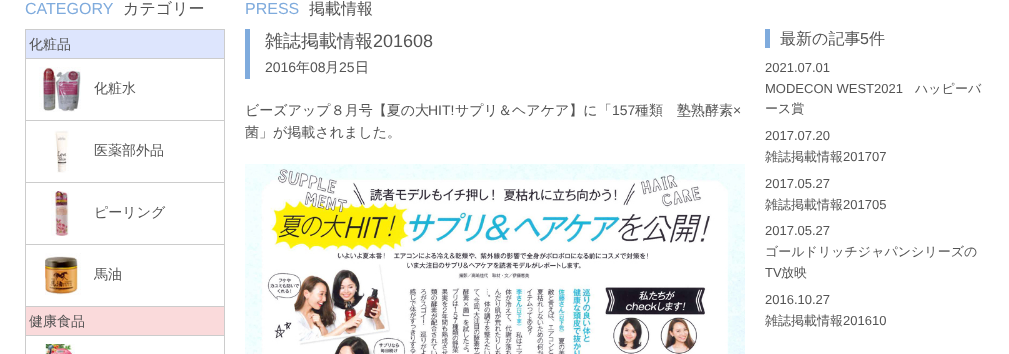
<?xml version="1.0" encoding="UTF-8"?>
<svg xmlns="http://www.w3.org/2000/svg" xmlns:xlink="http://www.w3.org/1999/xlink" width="1009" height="354">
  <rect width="100%" height="100%" fill="#ffffff" />
  <rect x="25" y="29" width="200" height="1" fill="#cccccc" />
  <rect x="224" y="29" width="1" height="325" fill="#cccccc" />
  <rect x="25" y="29" width="1" height="325" fill="#cccccc" />
  <rect x="26" y="30" width="198" height="28" fill="#dde5fd" />
  <rect x="26" y="58" width="198" height="1" fill="#cccccc" />
  <rect x="26" y="120" width="198" height="1" fill="#cccccc" />
  <image x="39" y="67" width="42" height="45" xlink:href="image1.png" />
  <rect x="26" y="182" width="198" height="1" fill="#cccccc" />
  <image x="54" y="130" width="15" height="43" xlink:href="image2.png" />
  <rect x="26" y="244" width="198" height="1" fill="#cccccc" />
  <image x="51" y="191" width="18" height="45" xlink:href="image3.png" />
  <rect x="26" y="306" width="198" height="1" fill="#cccccc" />
  <image x="45" y="253" width="36" height="42" xlink:href="image4.png" />
  <rect x="26" y="307" width="198" height="28" fill="#fadadb" />
  <rect x="26" y="335" width="198" height="1" fill="#cccccc" />
  <image x="45" y="344" width="30" height="10" xlink:href="image5.png" />
  <rect x="245" y="29" width="5" height="50" fill="#7fabdd" />
  <image x="245" y="164" width="500" height="190" xlink:href="image6.png" />
  <rect x="765" y="29" width="5" height="19" fill="#7fabdd" />
  <text x="25" y="14" style="font-family: Liberation Sans; font-size: 16px; fill: #7fabdd">CATEGORY</text>
  <text x="123" y="14" style="font-family: WenQuanYi Zen Hei; font-size: 16px; font-weight: 500; fill: #545454">カテゴリー</text>
  <text x="29" y="49" style="font-family: WenQuanYi Zen Hei; font-size: 14px; font-weight: 500; fill: #545454">化粧品</text>
  <text x="94" y="93" style="font-family: WenQuanYi Zen Hei; font-size: 14px; font-weight: 500; fill: #545454">化粧水</text>
  <text x="94" y="155" style="font-family: WenQuanYi Zen Hei; font-size: 14px; font-weight: 500; fill: #545454">医薬部外品</text>
  <text x="94" y="217" style="font-family: WenQuanYi Zen Hei; font-size: 14px; font-weight: 500; fill: #545454">ピーリング</text>
  <text x="94" y="279" style="font-family: WenQuanYi Zen Hei; font-size: 14px; font-weight: 500; fill: #545454">馬油</text>
  <text x="29" y="326" style="font-family: WenQuanYi Zen Hei; font-size: 14px; font-weight: 500; fill: #545454">健康食品</text>
  <text x="245" y="14" style="font-family: Liberation Sans; font-size: 16px; fill: #7fabdd">PRESS</text>
  <text x="309" y="14" style="font-family: WenQuanYi Zen Hei; font-size: 16px; font-weight: 500; fill: #545454">掲載情報</text>
  <text x="265" y="47" style="font-family: WenQuanYi Zen Hei; font-size: 18px; font-weight: 500; fill: #545454">雑誌掲載情報</text>
  <text x="373" y="47" style="font-family: Liberation Sans; font-size: 18px; fill: #545454">201608</text>
  <text x="265" y="72" style="font-family: Liberation Sans; font-size: 14px; fill: #545454">2016</text>
  <text x="296" y="72" style="font-family: WenQuanYi Zen Hei; font-size: 14px; font-weight: 500; fill: #545454">年</text>
  <text x="310" y="72" style="font-family: Liberation Sans; font-size: 14px; fill: #545454">08</text>
  <text x="325" y="72" style="font-family: WenQuanYi Zen Hei; font-size: 14px; font-weight: 500; fill: #545454">月</text>
  <text x="339" y="72" style="font-family: Liberation Sans; font-size: 14px; fill: #545454">25</text>
  <text x="355" y="72" style="font-family: WenQuanYi Zen Hei; font-size: 14px; font-weight: 500; fill: #545454">日</text>
  <text x="245" y="115" style="font-family: WenQuanYi Zen Hei; font-size: 14px; font-weight: 500; fill: #545454">ビーズアップ８月号【夏の大</text>
  <text x="428" y="115" style="font-family: Liberation Sans; font-size: 14px; fill: #545454">HIT!</text>
  <text x="455" y="115" style="font-family: WenQuanYi Zen Hei; font-size: 14px; font-weight: 500; fill: #545454">サプリ＆ヘアケア】に「</text>
  <text x="612" y="115" style="font-family: Liberation Sans; font-size: 14px; fill: #545454">157</text>
  <text x="635" y="115" style="font-family: WenQuanYi Zen Hei; font-size: 14px; font-weight: 500; fill: #545454">種類　塾熟酵素</text>
  <text x="733" y="115" style="font-family: Liberation Sans; font-size: 14px; fill: #545454">×</text>
  <text x="245" y="137" style="font-family: WenQuanYi Zen Hei; font-size: 14px; font-weight: 500; fill: #545454">菌」が掲載されました。</text>
  <text x="780" y="44" style="font-family: WenQuanYi Zen Hei; font-size: 16px; font-weight: 500; fill: #545454">最新の記事</text>
  <text x="860" y="44" style="font-family: Liberation Sans; font-size: 16px; fill: #545454">5</text>
  <text x="869" y="44" style="font-family: WenQuanYi Zen Hei; font-size: 16px; font-weight: 500; fill: #545454">件</text>
  <text x="765" y="72" style="font-family: Liberation Sans; font-size: 13px; fill: #545454">2021.07.01</text>
  <text x="765" y="93" style="font-family: Liberation Sans; font-size: 13px; fill: #545454">MODECON WEST2021</text>
  <text x="915" y="93" style="font-family: WenQuanYi Zen Hei; font-size: 13px; font-weight: 500; fill: #545454">ハッピーバ</text>
  <text x="765" y="113" style="font-family: WenQuanYi Zen Hei; font-size: 13px; font-weight: 500; fill: #545454">ース賞</text>
  <text x="765" y="140" style="font-family: Liberation Sans; font-size: 13px; fill: #545454">2017.07.20</text>
  <text x="765" y="161" style="font-family: WenQuanYi Zen Hei; font-size: 13px; font-weight: 500; fill: #545454">雑誌掲載情報</text>
  <text x="843" y="161" style="font-family: Liberation Sans; font-size: 13px; fill: #545454">201707</text>
  <text x="765" y="188" style="font-family: Liberation Sans; font-size: 13px; fill: #545454">2017.05.27</text>
  <text x="765" y="209" style="font-family: WenQuanYi Zen Hei; font-size: 13px; font-weight: 500; fill: #545454">雑誌掲載情報</text>
  <text x="843" y="209" style="font-family: Liberation Sans; font-size: 13px; fill: #545454">201705</text>
  <text x="765" y="235" style="font-family: Liberation Sans; font-size: 13px; fill: #545454">2017.05.27</text>
  <text x="765" y="256" style="font-family: WenQuanYi Zen Hei; font-size: 13px; font-weight: 500; fill: #545454">ゴールドリッチジャパンシリーズの</text>
  <text x="765" y="277" style="font-family: Liberation Sans; font-size: 13px; fill: #545454">TV</text>
  <text x="781" y="277" style="font-family: WenQuanYi Zen Hei; font-size: 13px; font-weight: 500; fill: #545454">放映</text>
  <text x="765" y="304" style="font-family: Liberation Sans; font-size: 13px; fill: #545454">2016.10.27</text>
  <text x="765" y="325" style="font-family: WenQuanYi Zen Hei; font-size: 13px; font-weight: 500; fill: #545454">雑誌掲載情報</text>
  <text x="843" y="325" style="font-family: Liberation Sans; font-size: 13px; fill: #545454">201610</text>
</svg>
